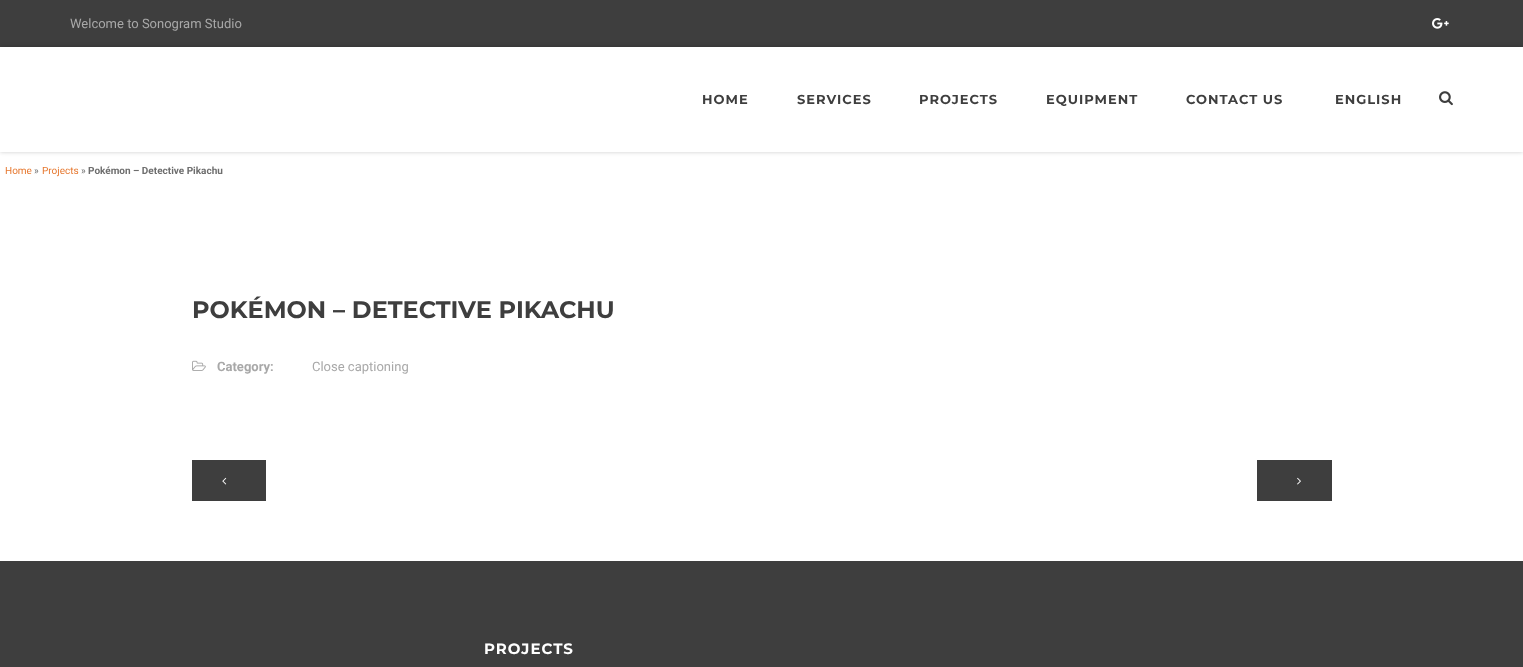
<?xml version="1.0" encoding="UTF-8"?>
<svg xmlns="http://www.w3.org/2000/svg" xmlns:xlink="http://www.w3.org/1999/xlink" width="1523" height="667">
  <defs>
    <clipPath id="clip1"><path d="M 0 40 h 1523 v 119 h -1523 z m 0 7 h 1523 v 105 h -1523 z" clip-rule="evenodd" /></clipPath>
  </defs>
  <rect width="100%" height="100%" fill="#ffffff" />
  <rect width="1523" height="47" fill="#3e3e3e" />
  <image x="1432" y="18" width="17" height="11" xlink:href="image1.png" />
  <g clip-path="url(#clip1)">
    <rect y="47" width="1523" height="105" fill="#000000" fill-opacity="0.2" filter="blur(2px)" />
  </g>
  <image x="1439" y="91" width="14" height="15" xlink:href="image2.png" />
  <image x="192" y="360" width="14" height="11" xlink:href="image3.png" />
  <rect x="192" y="460" width="74" height="41" fill="#3e3e3e" />
  <image x="222" y="477" width="5" height="8" xlink:href="image4.png" />
  <rect x="1257" y="460" width="75" height="41" fill="#3e3e3e" />
  <image x="1297" y="477" width="4" height="8" xlink:href="image5.png" />
  <rect y="561" width="1523" height="106" fill="#3e3e3e" />
  <text x="70" y="28" style="font-family: Roboto; font-size: 13px; fill: #a8a8a8">Welcome to Sonogram Studio</text>
  <text x="702" y="104" style="font-family: Montserrat; font-size: 13px; font-weight: bold; letter-spacing: 1px; fill: #3e3e3e">HOME</text>
  <text x="797" y="104" style="font-family: Montserrat; font-size: 13px; font-weight: bold; letter-spacing: 1px; fill: #3e3e3e">SERVICES</text>
  <text x="919" y="104" style="font-family: Montserrat; font-size: 13px; font-weight: bold; letter-spacing: 1px; fill: #3e3e3e">PROJECTS</text>
  <text x="1046" y="104" style="font-family: Montserrat; font-size: 13px; font-weight: bold; letter-spacing: 1px; fill: #3e3e3e">EQUIPMENT</text>
  <text x="1186" y="104" style="font-family: Montserrat; font-size: 13px; font-weight: bold; letter-spacing: 1px; fill: #3e3e3e">CONTACT US</text>
  <text x="1335" y="104" style="font-family: Montserrat; font-size: 13px; font-weight: bold; letter-spacing: 1px; fill: #3e3e3e">ENGLISH</text>
  <text x="5" y="174" style="font-family: Roboto; font-size: 10px; fill: #e6772e">Home</text>
  <text x="34" y="174" style="font-family: Roboto; font-size: 10px; fill: #6e6e6e">»</text>
  <text x="42" y="174" style="font-family: Roboto; font-size: 10px; fill: #e6772e">Projects</text>
  <text x="81" y="174" style="font-family: Roboto; font-size: 10px; fill: #6e6e6e">»</text>
  <text x="88" y="174" style="font-family: Roboto; font-size: 10px; font-weight: bold; fill: #6e6e6e">Pokémon – Detective Pikachu</text>
  <text x="192" y="318" style="font-family: Montserrat; font-size: 24px; font-weight: bold; fill: #3e3e3e">POKÉMON – DETECTIVE PIKACHU</text>
  <text x="217" y="371" style="font-family: Roboto; font-size: 13px; font-weight: bold; fill: #a8a8a8">Category:</text>
  <text x="312" y="371" style="font-family: Roboto; font-size: 13px; fill: #a8a8a8">Close captioning</text>
  <text x="484" y="654" style="font-family: Montserrat; font-size: 15px; font-weight: bold; letter-spacing: 1px; fill: #ffffff">PROJECTS</text>
</svg>
